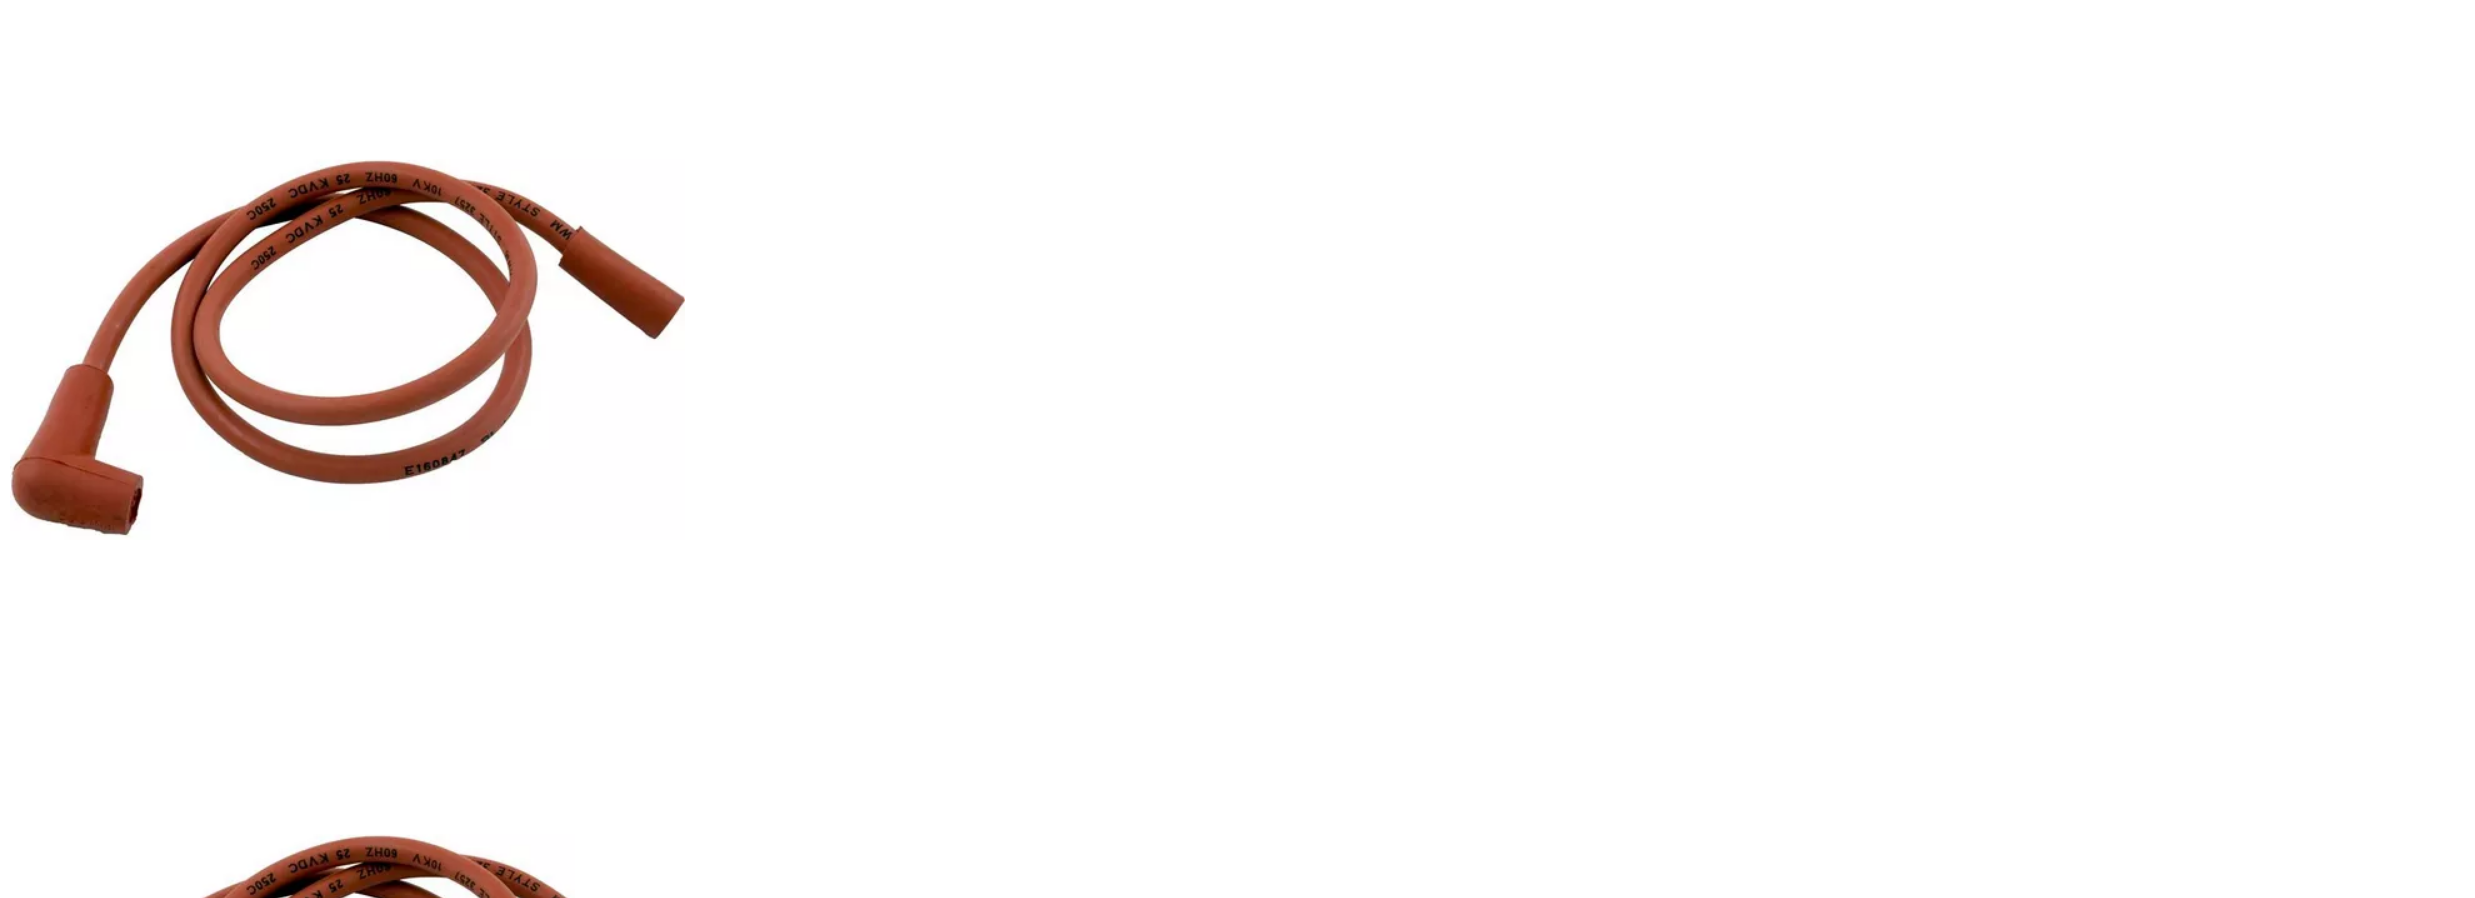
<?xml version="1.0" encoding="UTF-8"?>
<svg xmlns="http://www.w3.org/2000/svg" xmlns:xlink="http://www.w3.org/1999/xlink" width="2475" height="898">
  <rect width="100%" height="100%" fill="#ffffff" />
  <image x="10" y="159" width="675" height="381" xlink:href="image1.png" />
  <image x="200" y="834" width="375" height="64" xlink:href="image2.png" />
</svg>
